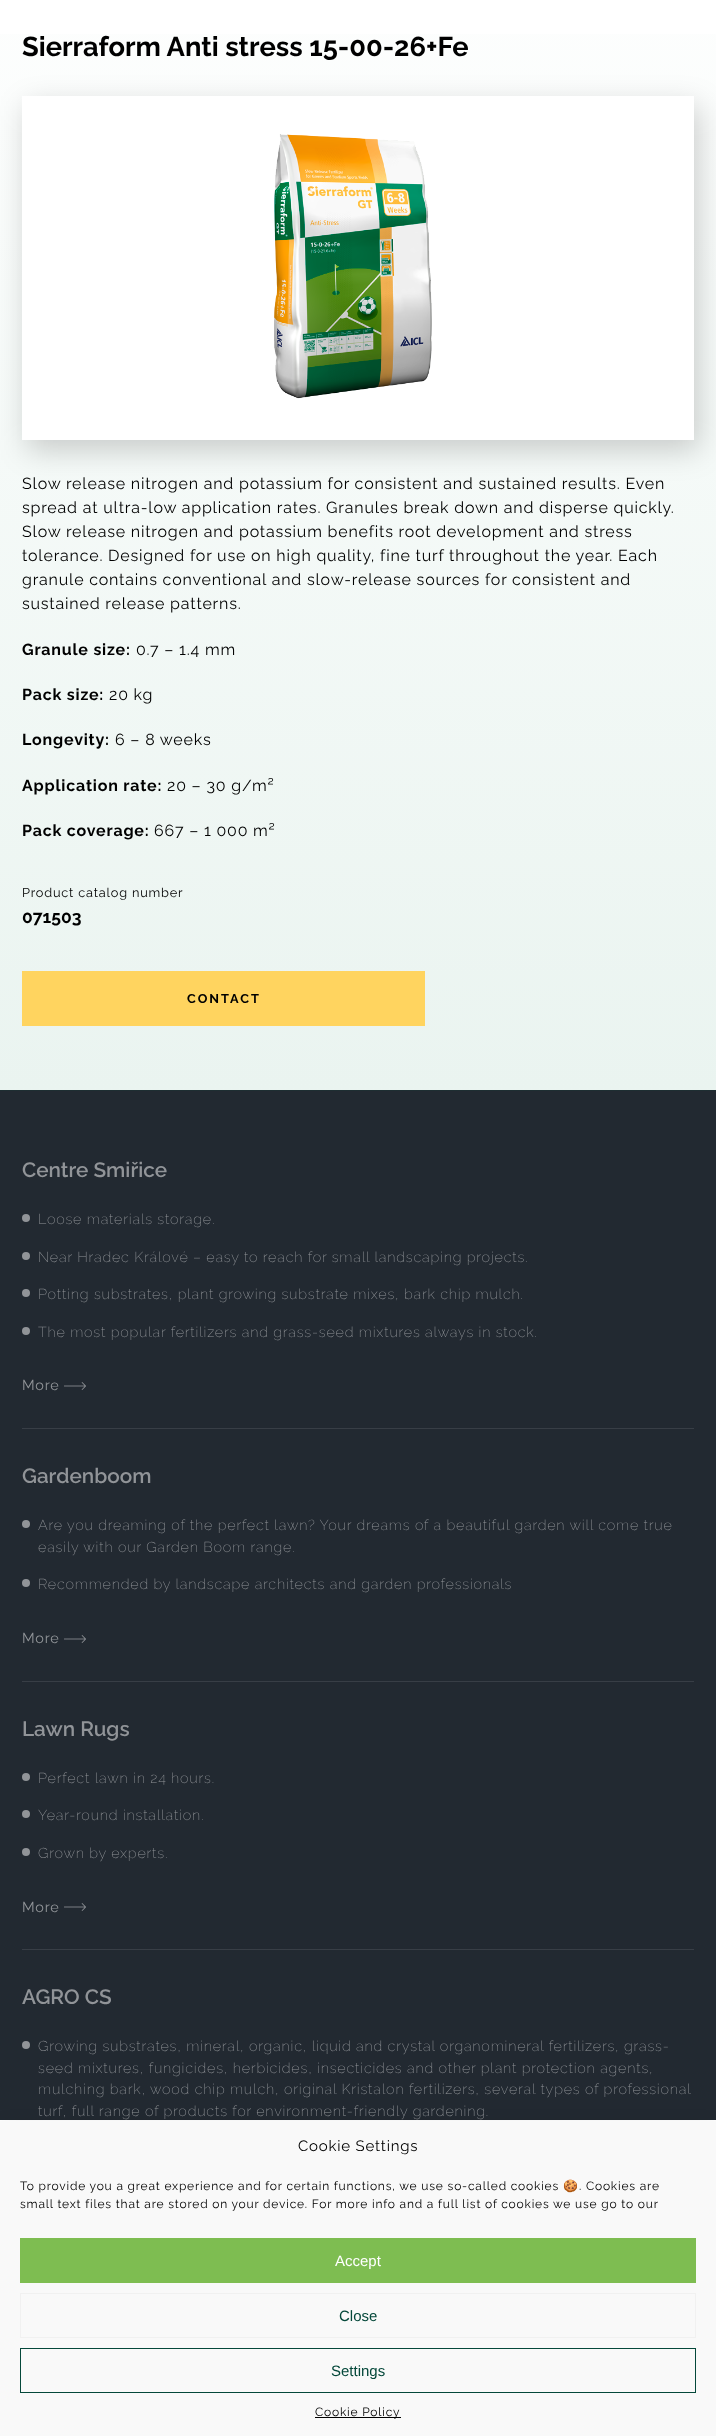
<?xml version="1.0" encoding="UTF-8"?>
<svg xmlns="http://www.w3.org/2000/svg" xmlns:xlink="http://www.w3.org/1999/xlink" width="716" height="2436">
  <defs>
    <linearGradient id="g1" gradientUnits="userSpaceOnUse" x1="358" y1="1090" x2="358" y2="-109"><stop offset="0" stop-color="#eaf4f0" /><stop offset="1" stop-color="#ffffff" /></linearGradient>
  </defs>
  <rect width="100%" height="100%" fill="#ffffff" />
  <rect y="34" width="716" height="1056" fill="url(#g1)" />
  <rect x="27" y="106" width="672" height="344" fill="#000000" fill-opacity="0.19" filter="blur(15px)" />
  <rect x="22" y="96" width="672" height="344" fill="#ffffff" />
  <image x="274" y="134" width="158" height="265" xlink:href="image1.png" />
  <rect x="22" y="971" width="403" height="55" fill="#ffd45f" />
  <rect y="1091" width="716" height="1029" fill="#222931" />
  <rect y="1090" width="716" height="1" fill="#1e2e32" />
  <circle cx="26" cy="1218" r="4" fill="#919498" />
  <circle cx="26" cy="1256" r="4" fill="#919498" />
  <circle cx="26" cy="1293" r="4" fill="#919498" />
  <circle cx="26" cy="1331" r="4" fill="#919498" />
  <image x="64" y="1382" width="22" height="8" xlink:href="image2.png" />
  <rect x="22" y="1428" width="672" height="1" fill="#383e46" />
  <circle cx="26" cy="1524" r="4" fill="#919498" />
  <circle cx="26" cy="1583" r="4" fill="#919498" />
  <image x="64" y="1635" width="22" height="8" xlink:href="image2.png" />
  <rect x="22" y="1681" width="672" height="1" fill="#383e46" />
  <circle cx="26" cy="1777" r="4" fill="#919498" />
  <circle cx="26" cy="1814" r="4" fill="#919498" />
  <circle cx="26" cy="1852" r="4" fill="#919498" />
  <image x="64" y="1903" width="22" height="8" xlink:href="image2.png" />
  <rect x="22" y="1949" width="672" height="1" fill="#383e46" />
  <circle cx="26" cy="2045" r="4" fill="#919498" />
  <rect y="2130" width="716" height="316" fill="#000000" fill-opacity="0.19" filter="blur(10px)" />
  <rect y="2121" width="716" height="315" fill="#f9f9f9" />
  <rect x="20" y="2238" width="676" height="45" fill="#7ebd51" />
  <rect x="20.5" y="2293.5" width="675" height="44" fill="none" stroke="#f1f1f1" />
  <rect x="20.5" y="2348.5" width="675" height="44" fill="none" stroke="#05483a" />
  <rect x="315" y="2417" width="86" height="1" fill="#000000" />
  <text x="22" y="56" style="font-family: Raleway; font-size: 27.25px; font-weight: bold; fill: #000000">Sierraform Anti stress 15-00-26+Fe</text>
  <text x="22" y="489" style="font-family: Raleway; font-size: 16px; letter-spacing: 0.8px; fill: #000000">Slow release nitrogen and potassium for consistent and sustained results. Even</text>
  <text x="22" y="513" style="font-family: Raleway; font-size: 16px; letter-spacing: 0.8px; fill: #000000">spread at ultra-low application rates. Granules break down and disperse quickly.</text>
  <text x="22" y="537" style="font-family: Raleway; font-size: 16px; letter-spacing: 0.8px; fill: #000000">Slow release nitrogen and potassium benefits root development and stress</text>
  <text x="22" y="561" style="font-family: Raleway; font-size: 16px; letter-spacing: 0.8px; fill: #000000">tolerance. Designed for use on high quality, fine turf throughout the year. Each</text>
  <text x="22" y="585" style="font-family: Raleway; font-size: 16px; letter-spacing: 0.8px; fill: #000000">granule contains conventional and slow-release sources for consistent and</text>
  <text x="22" y="609" style="font-family: Raleway; font-size: 16px; letter-spacing: 0.8px; fill: #000000">sustained release patterns.</text>
  <text x="22" y="655" style="font-family: Raleway; font-size: 16px; font-weight: bold; letter-spacing: 0.8px; fill: #000000">Granule size:</text>
  <text x="136" y="655" style="font-family: Raleway; font-size: 16px; letter-spacing: 0.8px; fill: #000000">0.7 – 1.4 mm</text>
  <text x="22" y="700" style="font-family: Raleway; font-size: 16px; font-weight: bold; letter-spacing: 0.8px; fill: #000000">Pack size:</text>
  <text x="109" y="700" style="font-family: Raleway; font-size: 16px; letter-spacing: 0.8px; fill: #000000">20 kg</text>
  <text x="22" y="745" style="font-family: Raleway; font-size: 16px; font-weight: bold; letter-spacing: 0.8px; fill: #000000">Longevity:</text>
  <text x="115" y="745" style="font-family: Raleway; font-size: 16px; letter-spacing: 0.8px; fill: #000000">6 – 8 weeks</text>
  <text x="22" y="791" style="font-family: Raleway; font-size: 16px; font-weight: bold; letter-spacing: 0.8px; fill: #000000">Application rate:</text>
  <text x="167" y="791" style="font-family: Raleway; font-size: 16px; letter-spacing: 0.8px; fill: #000000">20 – 30 g/m²</text>
  <text x="22" y="836" style="font-family: Raleway; font-size: 16px; font-weight: bold; letter-spacing: 0.8px; fill: #000000">Pack coverage:</text>
  <text x="154" y="836" style="font-family: Raleway; font-size: 16px; letter-spacing: 0.8px; fill: #000000">667 – 1 000 m²</text>
  <text x="22" y="897" style="font-family: Raleway; font-size: 12.75px; letter-spacing: 0.8px; fill: #000000">Product catalog number</text>
  <text x="22" y="923" style="font-family: Raleway; font-size: 17.5px; font-weight: bold; fill: #000000">071503</text>
  <text x="187" y="1003" style="font-family: Raleway; font-size: 12.75px; font-weight: bold; letter-spacing: 2px; fill: #000000">CONTACT</text>
  <text x="22" y="1177" style="font-family: Raleway; font-size: 20.75px; font-weight: 600; fill: #919498">Centre Smiřice</text>
  <text x="38" y="1224" style="font-family: Raleway; font-size: 14.4px; font-weight: 200; letter-spacing: 0.8px; fill: #919498">Loose materials storage.</text>
  <text x="38" y="1262" style="font-family: Raleway; font-size: 14.4px; font-weight: 200; letter-spacing: 0.8px; fill: #919498">Near Hradec Králové – easy to reach for small landscaping projects.</text>
  <text x="38" y="1299" style="font-family: Raleway; font-size: 14.4px; font-weight: 200; letter-spacing: 0.8px; fill: #919498">Potting substrates, plant growing substrate mixes, bark chip mulch.</text>
  <text x="38" y="1337" style="font-family: Raleway; font-size: 14.4px; font-weight: 200; letter-spacing: 0.8px; fill: #919498">The most popular fertilizers and grass-seed mixtures always in stock.</text>
  <text x="22" y="1390" style="font-family: Raleway; font-size: 14.4px; letter-spacing: 0.8px; fill: #919498">More</text>
  <text x="22" y="1483" style="font-family: Raleway; font-size: 20.75px; font-weight: 600; fill: #919498">Gardenboom</text>
  <text x="38" y="1530" style="font-family: Raleway; font-size: 14.4px; font-weight: 200; letter-spacing: 0.8px; fill: #919498">Are you dreaming of the perfect lawn? Your dreams of a beautiful garden will come true</text>
  <text x="38" y="1552" style="font-family: Raleway; font-size: 14.4px; font-weight: 200; letter-spacing: 0.8px; fill: #919498">easily with our Garden Boom range.</text>
  <text x="38" y="1589" style="font-family: Raleway; font-size: 14.4px; font-weight: 200; letter-spacing: 0.8px; fill: #919498">Recommended by landscape architects and garden professionals</text>
  <text x="22" y="1643" style="font-family: Raleway; font-size: 14.4px; letter-spacing: 0.8px; fill: #919498">More</text>
  <text x="22" y="1736" style="font-family: Raleway; font-size: 20.75px; font-weight: 600; fill: #919498">Lawn Rugs</text>
  <text x="38" y="1783" style="font-family: Raleway; font-size: 14.4px; font-weight: 200; letter-spacing: 0.8px; fill: #919498">Perfect lawn in 24 hours.</text>
  <text x="38" y="1820" style="font-family: Raleway; font-size: 14.4px; font-weight: 200; letter-spacing: 0.8px; fill: #919498">Year-round installation.</text>
  <text x="38" y="1858" style="font-family: Raleway; font-size: 14.4px; font-weight: 200; letter-spacing: 0.8px; fill: #919498">Grown by experts.</text>
  <text x="22" y="1912" style="font-family: Raleway; font-size: 14.4px; letter-spacing: 0.8px; fill: #919498">More</text>
  <text x="22" y="2004" style="font-family: Raleway; font-size: 20.75px; font-weight: 600; fill: #919498">AGRO CS</text>
  <text x="38" y="2051" style="font-family: Raleway; font-size: 14.4px; font-weight: 200; letter-spacing: 0.8px; fill: #919498">Growing substrates, mineral, organic, liquid and crystal organomineral fertilizers, grass-</text>
  <text x="38" y="2073" style="font-family: Raleway; font-size: 14.4px; font-weight: 200; letter-spacing: 0.8px; fill: #919498">seed mixtures, fungicides, herbicides, insecticides and other plant protection agents,</text>
  <text x="38" y="2094" style="font-family: Raleway; font-size: 14.4px; font-weight: 200; letter-spacing: 0.8px; fill: #919498">mulching bark, wood chip mulch, original Kristalon fertilizers, several types of professional</text>
  <text x="38" y="2116" style="font-family: Raleway; font-size: 14.4px; font-weight: 200; letter-spacing: 0.8px; fill: #919498">turf, full range of products for environment-friendly gardening.</text>
  <text x="298" y="2151" style="font-family: Raleway; font-size: 15px; letter-spacing: 0.8px; fill: #000000">Cookie Settings</text>
  <text x="20" y="2190" style="font-family: Raleway; font-size: 12px; letter-spacing: 0.8px; fill: #000000">To provide you a great experience and for certain functions, we use so-called cookies</text>
  <text x="563" y="2190" style="font-family: Noto Color Emoji; font-size: 12px; letter-spacing: 0.8px; fill: #000000">🍪</text>
  <text x="579" y="2190" style="font-family: Raleway; font-size: 12px; letter-spacing: 0.8px; fill: #000000">. Cookies are</text>
  <text x="20" y="2208" style="font-family: Raleway; font-size: 12px; letter-spacing: 0.8px; fill: #000000">small text files that are stored on your device. For more info and a full list of cookies we use go to our</text>
  <text x="335" y="2266" style="font-family: Liberation Sans; font-size: 15px; fill: #ffffff">Accept</text>
  <text x="339" y="2321" style="font-family: Liberation Sans; font-size: 15px; fill: #05483a">Close</text>
  <text x="331" y="2376" style="font-family: Liberation Sans; font-size: 15px; fill: #05483a">Settings</text>
  <text x="315" y="2416" style="font-family: Raleway; font-size: 12px; letter-spacing: 0.8px; fill: #000000">Cookie Policy</text>
</svg>
